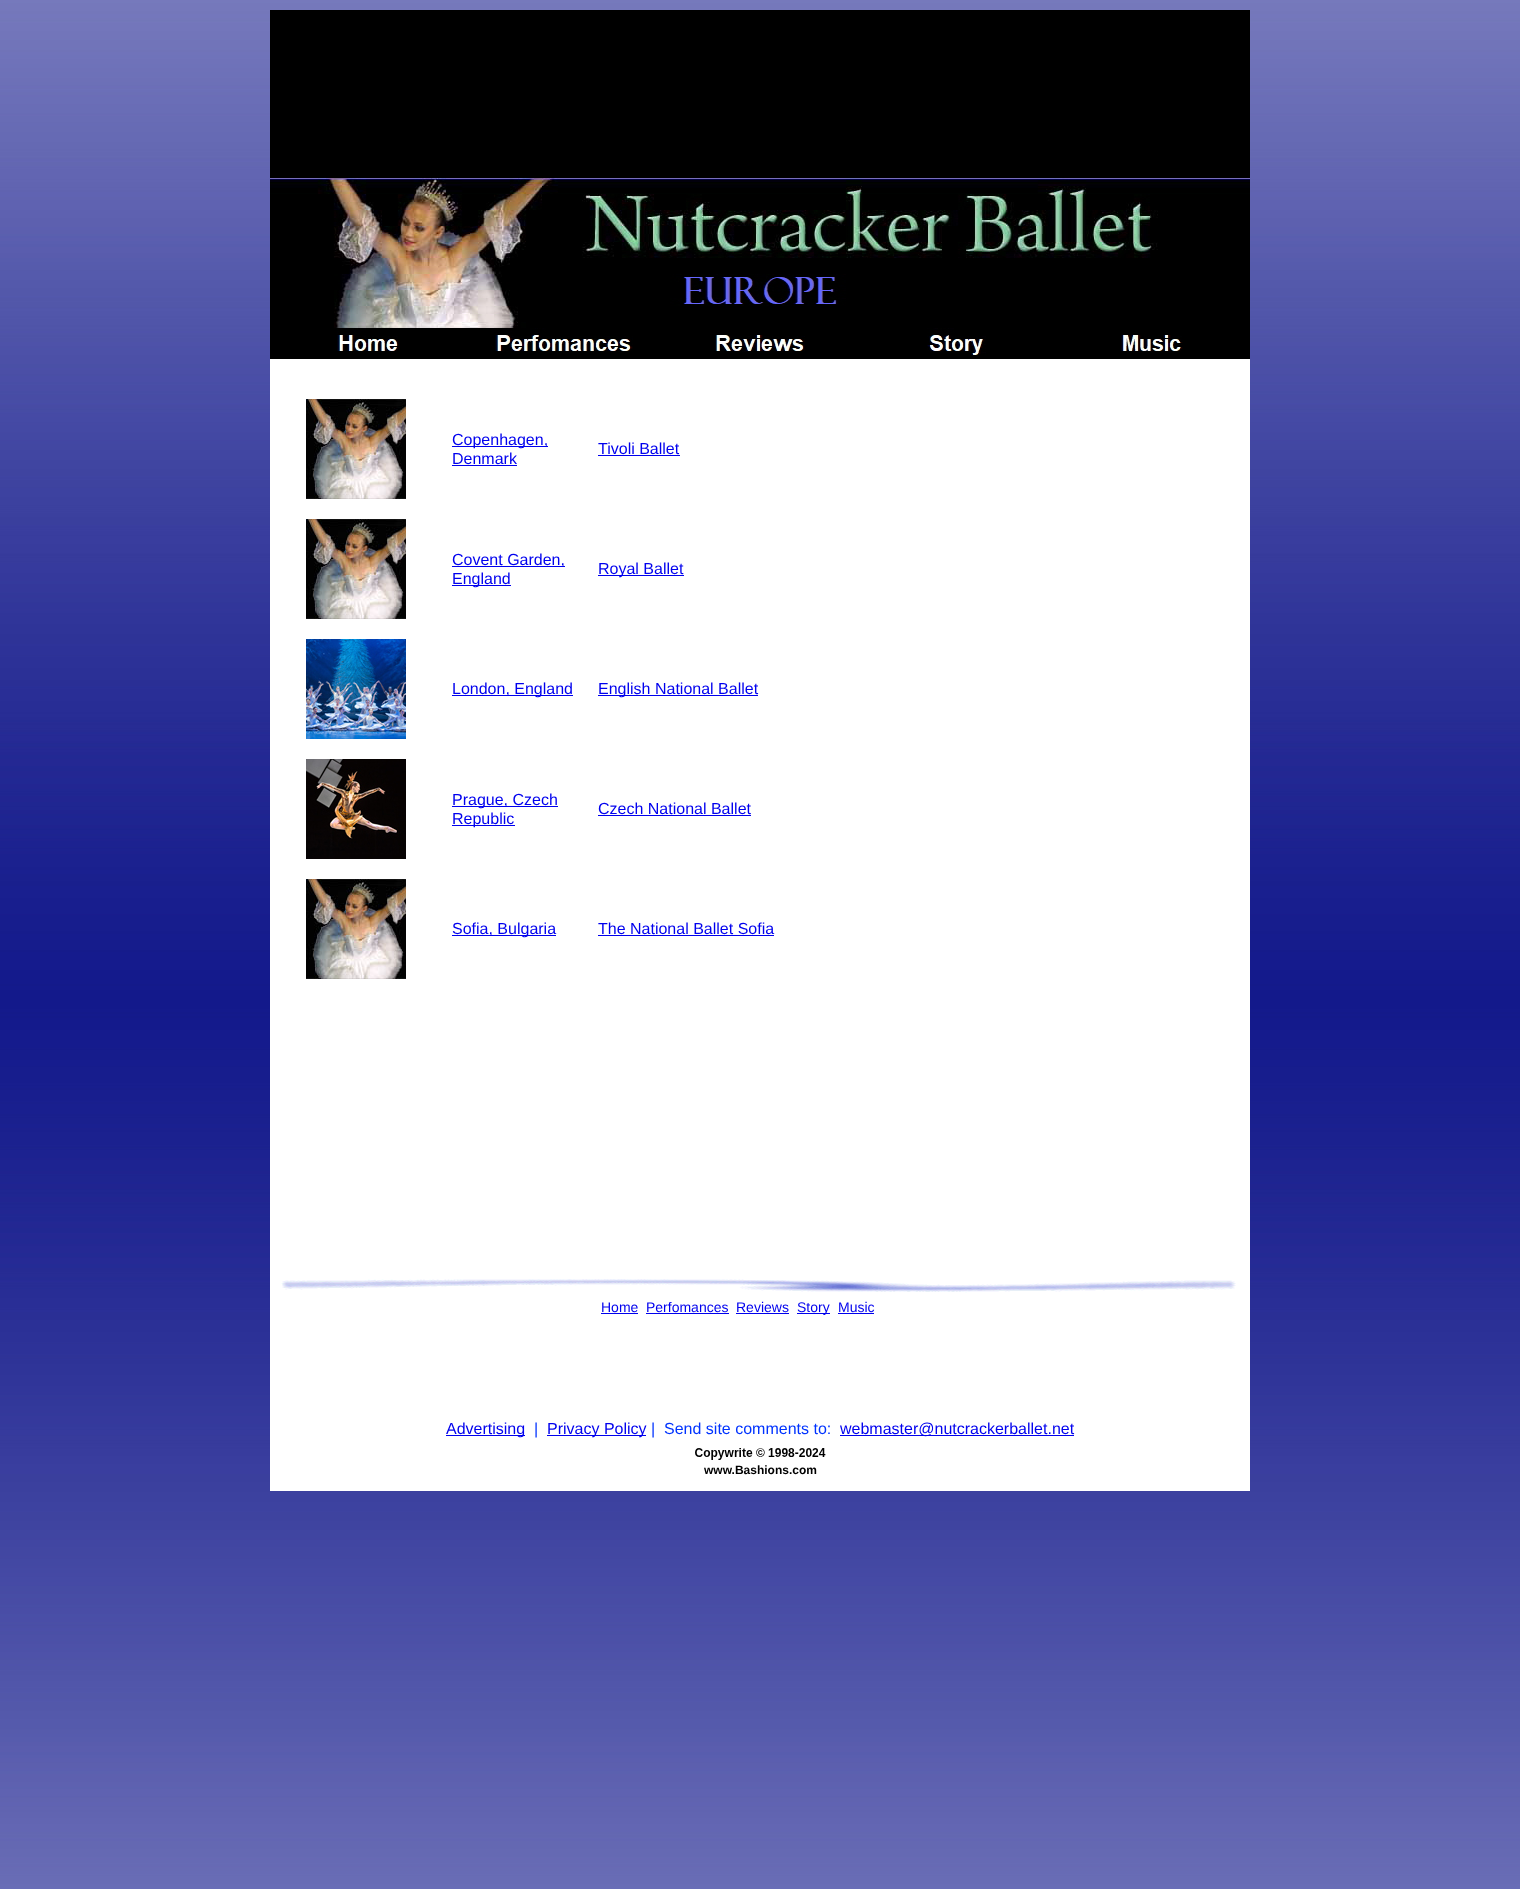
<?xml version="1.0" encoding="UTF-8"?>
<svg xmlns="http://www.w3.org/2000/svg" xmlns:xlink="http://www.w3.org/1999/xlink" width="1520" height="1889">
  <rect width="100%" height="100%" fill="#ffffff" />
  <image x="0" y="0" width="1520" height="1889" xlink:href="image1.png" />
  <rect x="270" y="10" width="980" height="349" fill="#000000" />
  <image x="270" y="178" width="980" height="150" xlink:href="image2.png" />
  <image x="337" y="328" width="62" height="23" xlink:href="image3.png" />
  <image x="491" y="328" width="142" height="24" xlink:href="image4.png" />
  <image x="715" y="335" width="90" height="17" xlink:href="image5.png" />
  <image x="927" y="328" width="59" height="27" xlink:href="image6.png" />
  <image x="1121" y="335" width="62" height="17" xlink:href="image7.png" />
  <rect x="270" y="359" width="980" height="1132" fill="#ffffff" />
  <image x="306" y="399" width="100" height="100" xlink:href="image8.png" />
  <rect x="452" y="446" width="96" height="1" fill="#0000ee" />
  <rect x="452" y="465" width="65" height="1" fill="#0000ee" />
  <rect x="598" y="455" width="82" height="1" fill="#0000ee" />
  <image x="306" y="519" width="100" height="100" xlink:href="image8.png" />
  <rect x="452" y="566" width="113" height="1" fill="#0000ee" />
  <rect x="452" y="585" width="59" height="1" fill="#0000ee" />
  <rect x="598" y="575" width="86" height="1" fill="#0000ee" />
  <image x="306" y="639" width="100" height="100" xlink:href="image9.png" />
  <rect x="452" y="695" width="121" height="1" fill="#0000ee" />
  <rect x="598" y="695" width="160" height="1" fill="#0000ee" />
  <image x="306" y="759" width="100" height="100" xlink:href="image10.png" />
  <rect x="452" y="806" width="106" height="1" fill="#0000ee" />
  <rect x="452" y="825" width="63" height="1" fill="#0000ee" />
  <rect x="598" y="815" width="153" height="1" fill="#0000ee" />
  <image x="306" y="879" width="100" height="100" xlink:href="image8.png" />
  <rect x="452" y="935" width="104" height="1" fill="#0000ee" />
  <rect x="598" y="935" width="176" height="1" fill="#0000ee" />
  <image x="281" y="1279" width="955" height="14" xlink:href="image11.png" />
  <rect x="601" y="1313" width="37" height="1" fill="#0000ee" />
  <rect x="646" y="1313" width="83" height="1" fill="#0000ee" />
  <rect x="736" y="1313" width="53" height="1" fill="#0000ee" />
  <rect x="797" y="1313" width="33" height="1" fill="#0000ee" />
  <rect x="838" y="1313" width="36" height="1" fill="#0000ee" />
  <rect x="446" y="1435" width="79" height="1" fill="#0000ee" />
  <rect x="547" y="1435" width="99" height="1" fill="#0000ee" />
  <rect x="840" y="1435" width="234" height="1" fill="#0000ee" />
  <image x="695" y="1448" width="131" height="12" xlink:href="image12.png" />
  <text x="452" y="445" style="font-family: Liberation Sans; font-size: 16px; fill: #0000ee">Copenhagen,</text>
  <text x="452" y="464" style="font-family: Liberation Sans; font-size: 16px; fill: #0000ee">Denmark</text>
  <text x="598" y="454" style="font-family: Liberation Sans; font-size: 16px; fill: #0000ee">Tivoli Ballet</text>
  <text x="452" y="565" style="font-family: Liberation Sans; font-size: 16px; fill: #0000ee">Covent Garden,</text>
  <text x="452" y="584" style="font-family: Liberation Sans; font-size: 16px; fill: #0000ee">England</text>
  <text x="598" y="574" style="font-family: Liberation Sans; font-size: 16px; fill: #0000ee">Royal Ballet</text>
  <text x="452" y="694" style="font-family: Liberation Sans; font-size: 16px; fill: #0000ee">London, England</text>
  <text x="598" y="694" style="font-family: Liberation Sans; font-size: 16px; fill: #0000ee">English National Ballet</text>
  <text x="452" y="805" style="font-family: Liberation Sans; font-size: 16px; fill: #0000ee">Prague, Czech</text>
  <text x="452" y="824" style="font-family: Liberation Sans; font-size: 16px; fill: #0000ee">Republic</text>
  <text x="598" y="814" style="font-family: Liberation Sans; font-size: 16px; fill: #0000ee">Czech National Ballet</text>
  <text x="452" y="934" style="font-family: Liberation Sans; font-size: 16px; fill: #0000ee">Sofia, Bulgaria</text>
  <text x="598" y="934" style="font-family: Liberation Sans; font-size: 16px; fill: #0000ee">The National Ballet Sofia</text>
  <text x="601" y="1312" style="font-family: Liberation Sans; font-size: 14px; fill: #0000ee">Home</text>
  <text x="646" y="1312" style="font-family: Liberation Sans; font-size: 14px; fill: #0000ee">Perfomances</text>
  <text x="736" y="1312" style="font-family: Liberation Sans; font-size: 14px; fill: #0000ee">Reviews</text>
  <text x="797" y="1312" style="font-family: Liberation Sans; font-size: 14px; fill: #0000ee">Story</text>
  <text x="838" y="1312" style="font-family: Liberation Sans; font-size: 14px; fill: #0000ee">Music</text>
  <text x="446" y="1434" style="font-family: Liberation Sans; font-size: 16px; fill: #0000ee">Advertising</text>
  <text x="534" y="1434" style="font-family: Liberation Sans; font-size: 16px; fill: #0033ff">|</text>
  <text x="547" y="1434" style="font-family: Liberation Sans; font-size: 16px; fill: #0000ee">Privacy Policy</text>
  <text x="651" y="1434" style="font-family: Liberation Sans; font-size: 16px; fill: #0033ff" xml:space="preserve">|  Send site comments to:</text>
  <text x="840" y="1434" style="font-family: Liberation Sans; font-size: 16px; fill: #0000ee">webmaster@nutcrackerballet.net</text>
  <text x="704" y="1474" style="font-family: Liberation Sans; font-size: 12px; font-weight: bold; fill: #000000">www.Bashions.com</text>
</svg>
